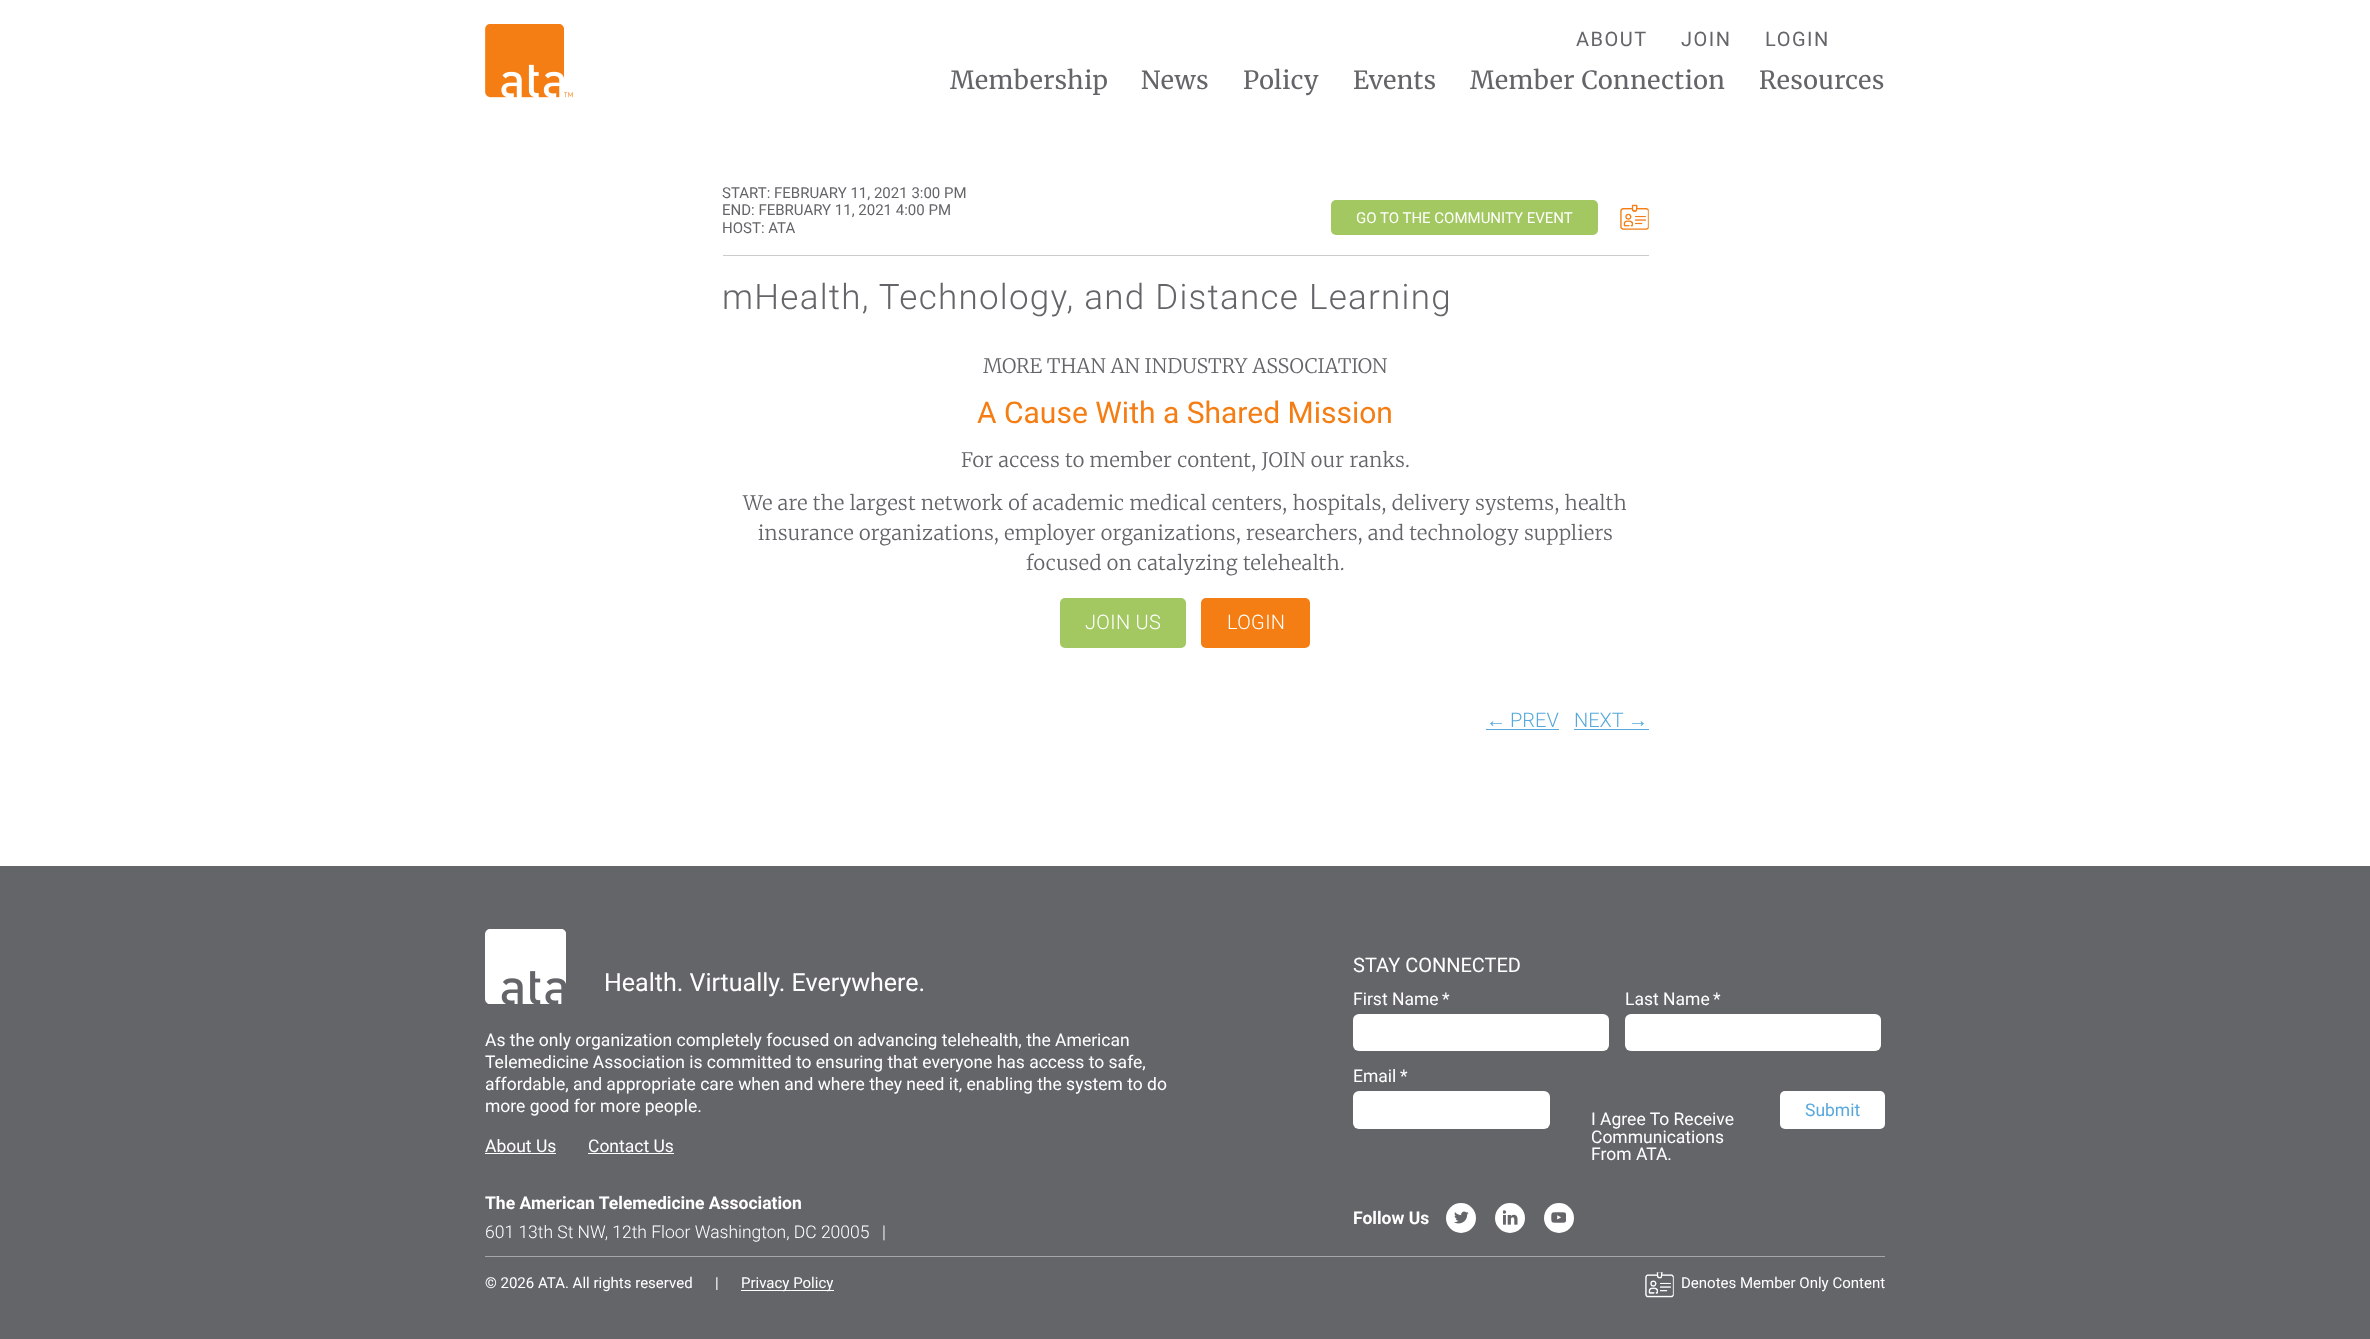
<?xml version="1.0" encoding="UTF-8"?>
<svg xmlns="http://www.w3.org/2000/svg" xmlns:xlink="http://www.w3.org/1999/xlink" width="2370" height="1339">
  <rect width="100%" height="100%" fill="#ffffff" />
  <image x="485" y="24" width="88" height="74" xlink:href="image1.png" />
  <rect x="1331" y="200" width="267" height="35" rx="5" fill="#a3c861" />
  <image x="1620" y="204" width="29" height="26" xlink:href="image2.png" />
  <rect x="723" y="255" width="926" height="1" fill="#cccccc" />
  <rect x="1060" y="598" width="126" height="50" rx="5" fill="#a3c861" />
  <rect x="1201" y="598" width="109" height="50" rx="5" fill="#f47e14" />
  <rect x="1486" y="729" width="73" height="1" fill="#58a9db" />
  <rect x="1574" y="729" width="75" height="1" fill="#58a9db" />
  <rect y="866" width="2370" height="473" fill="#636569" />
  <image x="485" y="929" width="81" height="75" xlink:href="image3.png" />
  <rect x="485" y="1153" width="71" height="1" fill="#ffffff" />
  <rect x="588" y="1153" width="86" height="1" fill="#ffffff" />
  <rect x="1353" y="1014" width="256" height="37" rx="6" fill="#ffffff" />
  <rect x="1625" y="1014" width="256" height="37" rx="6" fill="#ffffff" />
  <rect x="1353" y="1091" width="197" height="38" rx="6" fill="#ffffff" />
  <rect x="1780" y="1091" width="105" height="38" rx="5" fill="#ffffff" />
  <circle cx="1461" cy="1218" r="15" fill="#ffffff" />
  <image x="1454" y="1211" width="15" height="13" xlink:href="image4.png" />
  <circle cx="1510" cy="1218" r="15" fill="#ffffff" />
  <image x="1503" y="1210" width="15" height="15" xlink:href="image5.png" />
  <circle cx="1559" cy="1218" r="15" fill="#ffffff" />
  <image x="1551" y="1212" width="15" height="11" xlink:href="image6.png" />
  <rect x="485" y="1256" width="1400" height="1" fill="#a5a7a8" />
  <rect x="741" y="1290" width="93" height="1" fill="#ffffff" />
  <image x="1645" y="1272" width="29" height="26" xlink:href="image7.png" />
  <text x="1576" y="46" style="font-family: Roboto; font-size: 20px; letter-spacing: 1.5px; fill: #636569">ABOUT</text>
  <text x="1681" y="46" style="font-family: Roboto; font-size: 20px; letter-spacing: 1.5px; fill: #636569">JOIN</text>
  <text x="1765" y="46" style="font-family: Roboto; font-size: 20px; letter-spacing: 1.5px; fill: #636569">LOGIN</text>
  <text x="950" y="89" style="font-family: Merriweather; font-size: 25px; letter-spacing: 0.5px; fill: #636569">Membership</text>
  <text x="1141" y="89" style="font-family: Merriweather; font-size: 25px; letter-spacing: 0.5px; fill: #636569">News</text>
  <text x="1243" y="89" style="font-family: Merriweather; font-size: 25px; letter-spacing: 0.5px; fill: #636569">Policy</text>
  <text x="1353" y="89" style="font-family: Merriweather; font-size: 25px; letter-spacing: 0.5px; fill: #636569">Events</text>
  <text x="1470" y="89" style="font-family: Merriweather; font-size: 25px; letter-spacing: 0.5px; fill: #636569">Member Connection</text>
  <text x="1759" y="89" style="font-family: Merriweather; font-size: 25px; letter-spacing: 0.5px; fill: #636569">Resources</text>
  <text x="722" y="198" style="font-family: Roboto; font-size: 15px; fill: #636569">START: FEBRUARY 11, 2021 3:00 PM</text>
  <text x="722" y="215" style="font-family: Roboto; font-size: 15px; fill: #636569">END: FEBRUARY 11, 2021 4:00 PM</text>
  <text x="722" y="233" style="font-family: Roboto; font-size: 15px; fill: #636569">HOST: ATA</text>
  <text x="1356" y="223" style="font-family: Roboto; font-size: 15px; fill: #ffffff">GO TO THE COMMUNITY EVENT</text>
  <text x="722" y="309" style="font-family: Roboto; font-size: 35px; font-weight: 300; letter-spacing: 1.25px; fill: #636569">mHealth, Technology, and Distance Learning</text>
  <text x="983" y="373" style="font-family: Merriweather; font-size: 20px; font-weight: 300; fill: #636569">MORE THAN AN INDUSTRY ASSOCIATION</text>
  <text x="977" y="423" style="font-family: Roboto; font-size: 30px; fill: #f47e14">A Cause With a Shared Mission</text>
  <text x="961" y="467" style="font-family: Merriweather; font-size: 20px; font-weight: 300; letter-spacing: 0.33px; fill: #636569">For access to member content, JOIN our ranks.</text>
  <text x="743" y="510" style="font-family: Merriweather; font-size: 20px; font-weight: 300; letter-spacing: 0.33px; fill: #636569">We are the largest network of academic medical centers, hospitals, delivery systems, health</text>
  <text x="758" y="540" style="font-family: Merriweather; font-size: 20px; font-weight: 300; letter-spacing: 0.33px; fill: #636569">insurance organizations, employer organizations, researchers, and technology suppliers</text>
  <text x="1026" y="570" style="font-family: Merriweather; font-size: 20px; font-weight: 300; letter-spacing: 0.33px; fill: #636569">focused on catalyzing telehealth.</text>
  <text x="1085" y="629" style="font-family: Roboto; font-size: 20px; font-weight: 300; letter-spacing: 0.33px; fill: #ffffff">JOIN US</text>
  <text x="1227" y="629" style="font-family: Roboto; font-size: 20px; font-weight: 300; letter-spacing: 0.33px; fill: #ffffff">LOGIN</text>
  <text x="1486" y="727" style="font-family: Liberation Serif; font-size: 20px; fill: #58a9db">←</text>
  <text x="1510" y="727" style="font-family: Roboto; font-size: 20px; font-weight: 300; fill: #58a9db">PREV</text>
  <text x="1574" y="727" style="font-family: Roboto; font-size: 20px; font-weight: 300; fill: #58a9db">NEXT</text>
  <text x="1628" y="727" style="font-family: Liberation Serif; font-size: 20px; fill: #58a9db">→</text>
  <text x="604" y="991" style="font-family: Roboto; font-size: 25px; fill: #ffffff">Health. Virtually. Everywhere.</text>
  <text x="485" y="1046" style="font-family: Roboto; font-size: 17.5px; fill: #ffffff">As the only organization completely focused on advancing telehealth, the American</text>
  <text x="485" y="1068" style="font-family: Roboto; font-size: 17.5px; fill: #ffffff">Telemedicine Association is committed to ensuring that everyone has access to safe,</text>
  <text x="485" y="1090" style="font-family: Roboto; font-size: 17.5px; fill: #ffffff">affordable, and appropriate care when and where they need it, enabling the system to do</text>
  <text x="485" y="1112" style="font-family: Roboto; font-size: 17.5px; fill: #ffffff">more good for more people.</text>
  <text x="485" y="1152" style="font-family: Roboto; font-size: 17.5px; fill: #ffffff">About Us</text>
  <text x="588" y="1152" style="font-family: Roboto; font-size: 17.5px; fill: #ffffff">Contact Us</text>
  <text x="1353" y="972" style="font-family: Roboto; font-size: 20px; fill: #ffffff">STAY CONNECTED</text>
  <text x="1353" y="1005" style="font-family: Roboto; font-size: 17.5px; fill: #ffffff">First Name</text>
  <text x="1442" y="1005" style="font-family: Roboto; font-size: 17.5px; fill: #ffffff">*</text>
  <text x="1625" y="1005" style="font-family: Roboto; font-size: 17.5px; fill: #ffffff">Last Name</text>
  <text x="1713" y="1005" style="font-family: Roboto; font-size: 17.5px; fill: #ffffff">*</text>
  <text x="1353" y="1082" style="font-family: Roboto; font-size: 17.5px; fill: #ffffff">Email</text>
  <text x="1400" y="1082" style="font-family: Roboto; font-size: 17.5px; fill: #ffffff">*</text>
  <text x="1805" y="1116" style="font-family: Roboto; font-size: 17.5px; fill: #58a9db">Submit</text>
  <text x="1591" y="1125" style="font-family: Roboto; font-size: 17.5px; fill: #ffffff">I Agree To Receive</text>
  <text x="1591" y="1143" style="font-family: Roboto; font-size: 17.5px; fill: #ffffff">Communications</text>
  <text x="1591" y="1160" style="font-family: Roboto; font-size: 17.5px; fill: #ffffff">From ATA.</text>
  <text x="485" y="1209" style="font-family: Roboto; font-size: 17.5px; font-weight: bold; fill: #ffffff">The American Telemedicine Association</text>
  <text x="485" y="1238" style="font-family: Roboto; font-size: 17.5px; font-weight: 300; fill: #ffffff">601 13th St NW, 12th Floor Washington, DC 20005</text>
  <text x="882" y="1238" style="font-family: Roboto; font-size: 17.5px; font-weight: 300; fill: #ffffff">|</text>
  <text x="1353" y="1224" style="font-family: Roboto; font-size: 17.5px; font-weight: bold; fill: #ffffff">Follow Us</text>
  <text x="485" y="1288" style="font-family: Roboto; font-size: 15px; fill: #ffffff" xml:space="preserve">© 2026 ATA. All rights reserved      |</text>
  <text x="741" y="1288" style="font-family: Roboto; font-size: 15px; fill: #ffffff">Privacy Policy</text>
  <text x="1681" y="1288" style="font-family: Roboto; font-size: 15px; fill: #ffffff">Denotes Member Only Content</text>
</svg>
